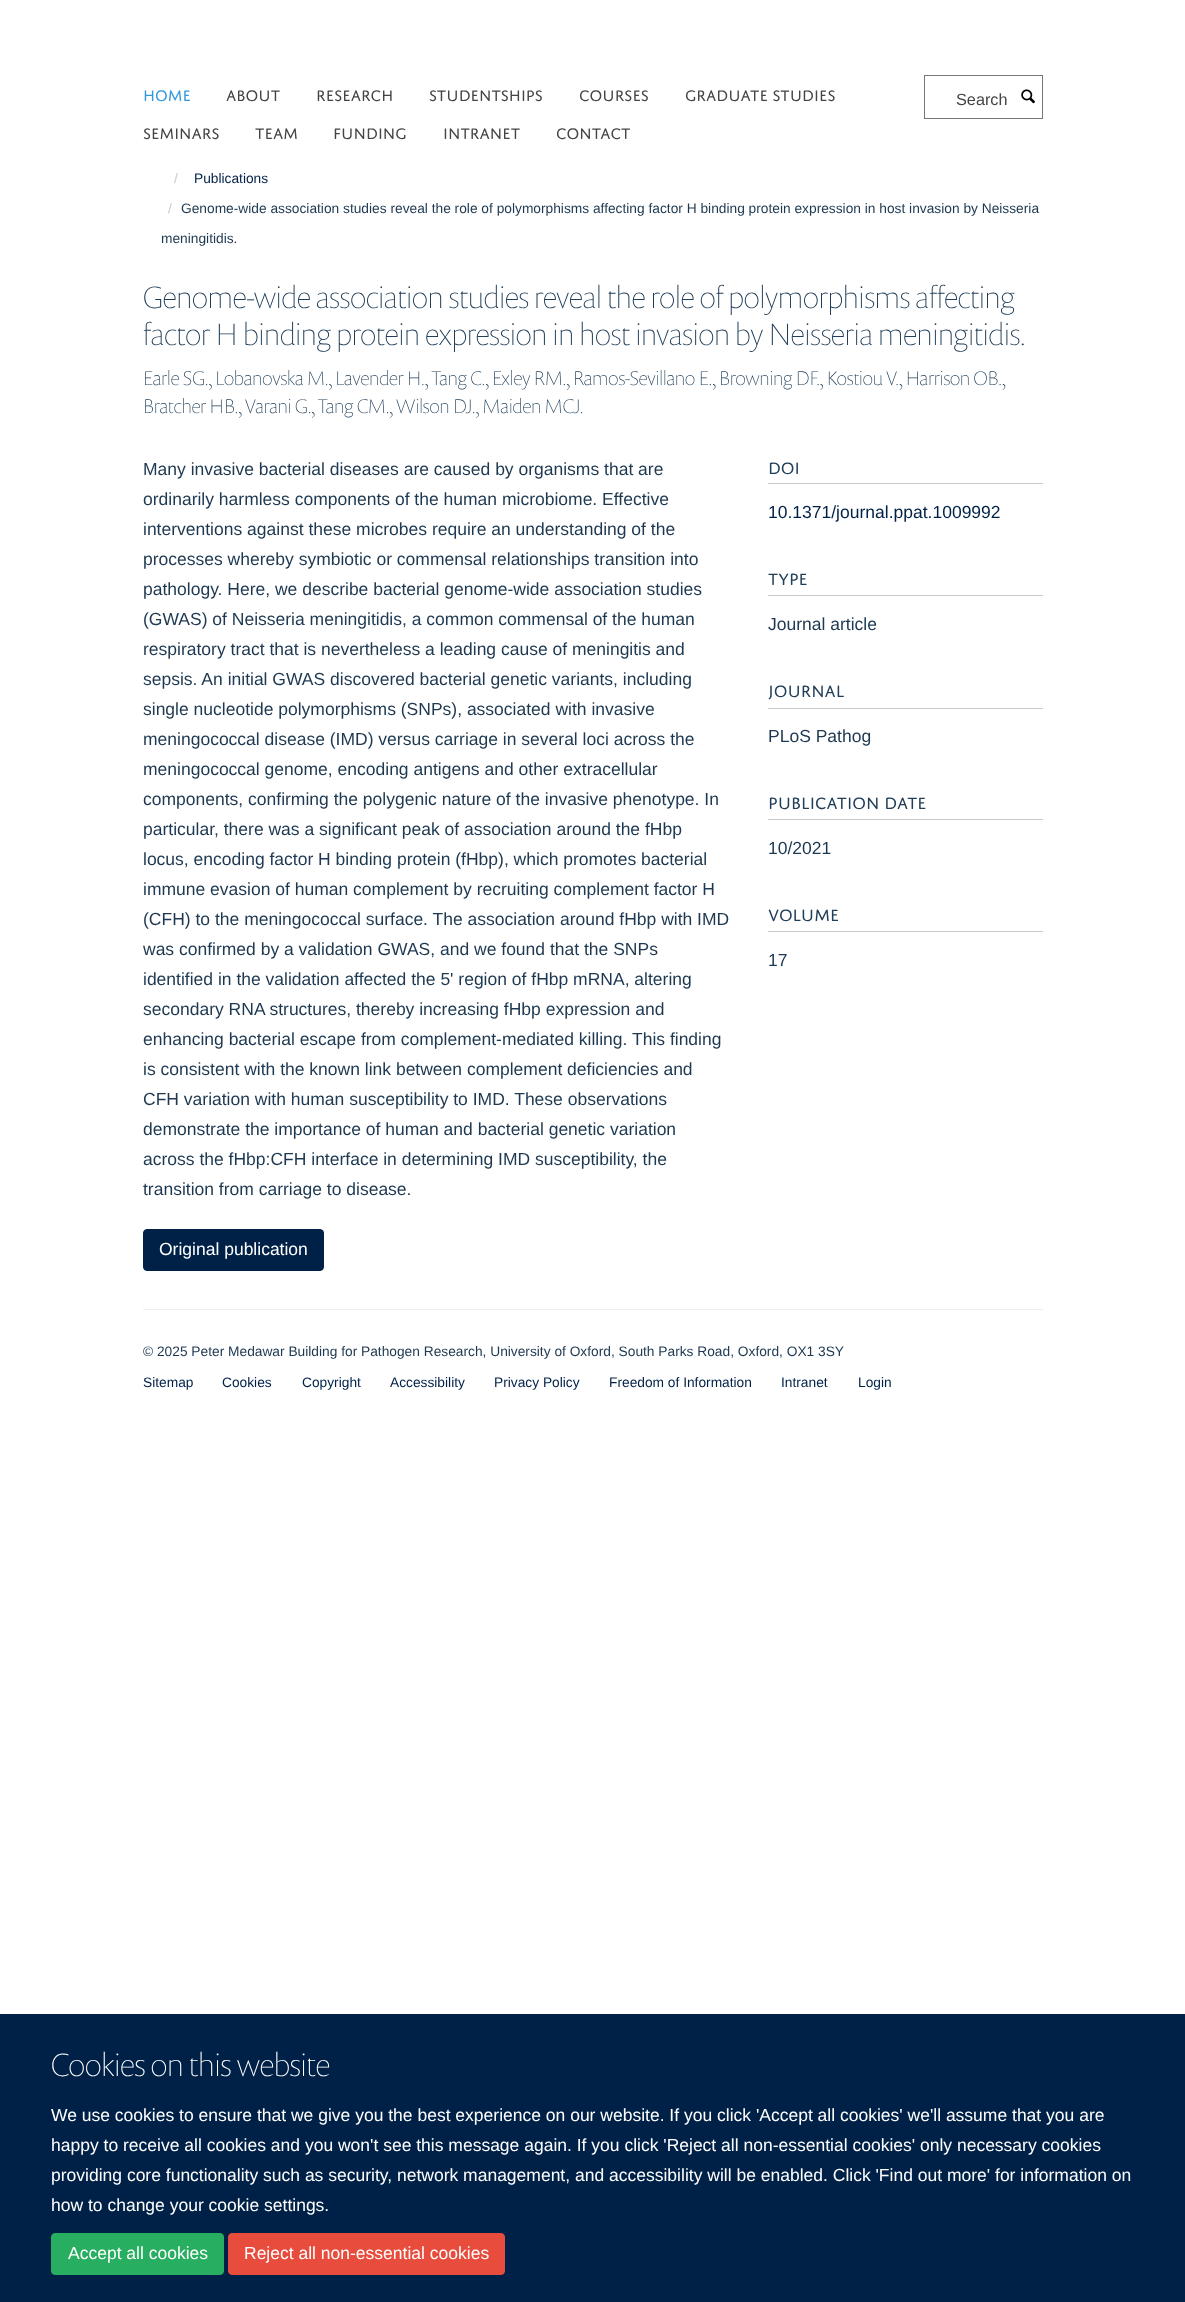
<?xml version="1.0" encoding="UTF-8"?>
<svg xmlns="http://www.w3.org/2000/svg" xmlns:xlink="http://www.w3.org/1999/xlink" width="1185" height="2302">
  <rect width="100%" height="100%" fill="#ffffff" />
  <rect x="924.5" y="75.5" width="118" height="43" fill="none" stroke="#777777" />
  <image x="1021" y="89" width="14" height="15" xlink:href="image1.png" />
  <rect x="143.5" y="1229.5" width="180" height="41" rx="3.5" fill="#002147" stroke="#002147" />
  <rect x="768" y="483" width="275" height="1" fill="#c6cacf" />
  <rect x="768" y="595" width="275" height="1" fill="#c6cacf" />
  <rect x="768" y="708" width="275" height="1" fill="#c6cacf" />
  <rect x="768" y="819" width="275" height="1" fill="#c6cacf" />
  <rect x="768" y="931" width="275" height="1" fill="#c6cacf" />
  <rect x="143" y="1309" width="900" height="1" fill="#eeeeee" />
  <rect y="2014" width="1185" height="288" fill="#002147" />
  <rect x="51.5" y="2233.5" width="172" height="41" rx="3.5" fill="#27ae60" stroke="#27ae60" />
  <rect x="228.5" y="2233.5" width="276" height="41" rx="3.5" fill="#e74c3c" stroke="#e74c3c" />
  <text x="143" y="101" style="font-family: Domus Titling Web; font-size: 16.25px; fill: #3498db">HOME</text>
  <text x="226" y="101" style="font-family: Domus Titling Web; font-size: 16.25px; fill: #444444">ABOUT</text>
  <text x="316" y="101" style="font-family: Domus Titling Web; font-size: 16.25px; fill: #444444">RESEARCH</text>
  <text x="429" y="101" style="font-family: Domus Titling Web; font-size: 16.25px; fill: #444444">STUDENTSHIPS</text>
  <text x="579" y="101" style="font-family: Domus Titling Web; font-size: 16.25px; fill: #444444">COURSES</text>
  <text x="685" y="101" style="font-family: Domus Titling Web; font-size: 16.25px; fill: #444444">GRADUATE STUDIES</text>
  <text x="143" y="139" style="font-family: Domus Titling Web; font-size: 16.25px; fill: #444444">SEMINARS</text>
  <text x="255" y="139" style="font-family: Domus Titling Web; font-size: 16.25px; fill: #444444">TEAM</text>
  <text x="333" y="139" style="font-family: Domus Titling Web; font-size: 16.25px; fill: #444444">FUNDING</text>
  <text x="443" y="139" style="font-family: Domus Titling Web; font-size: 16.25px; fill: #444444">INTRANET</text>
  <text x="556" y="139" style="font-family: Domus Titling Web; font-size: 16.25px; fill: #444444">CONTACT</text>
  <text x="956" y="105" style="font-family: Liberation Sans; font-size: 16.25px; fill: #444444">Search</text>
  <text x="174" y="183" style="font-family: Liberation Sans; font-size: 13.75px; fill: #cccccc">/</text>
  <text x="194" y="183" style="font-family: Liberation Sans; font-size: 13.75px; fill: #002147">Publications</text>
  <text x="168" y="213" style="font-family: Liberation Sans; font-size: 13.75px; fill: #cccccc">/</text>
  <text x="181" y="213" style="font-family: Liberation Sans; font-size: 13.75px; fill: #1d3850">Genome-wide association studies reveal the role of polymorphisms affecting factor H binding protein expression in host invasion by Neisseria</text>
  <text x="161" y="243" style="font-family: Liberation Sans; font-size: 13.75px; fill: #1d3850">meningitidis.</text>
  <text x="143" y="308" style="font-family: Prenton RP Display; font-size: 31.25px; font-weight: 100; fill: #203e58">Genome-wide association studies reveal the role of polymorphisms affecting</text>
  <text x="143" y="345" style="font-family: Prenton RP Display; font-size: 31.25px; font-weight: 100; fill: #203e58">factor H binding protein expression in host invasion by Neisseria meningitidis.</text>
  <text x="143" y="385" style="font-family: Prenton RP Display; font-size: 20px; font-weight: 100; fill: #203e58">Earle SG., Lobanovska M., Lavender H., Tang C., Exley RM., Ramos-Sevillano E., Browning DF., Kostiou V., Harrison OB.,</text>
  <text x="143" y="413" style="font-family: Prenton RP Display; font-size: 20px; font-weight: 100; fill: #203e58">Bratcher HB., Varani G., Tang CM., Wilson DJ., Maiden MCJ.</text>
  <text x="143" y="475" style="font-family: Liberation Sans; font-size: 17.5px; fill: #1d3850">Many invasive bacterial diseases are caused by organisms that are</text>
  <text x="143" y="505" style="font-family: Liberation Sans; font-size: 17.5px; fill: #1d3850">ordinarily harmless components of the human microbiome. Effective</text>
  <text x="143" y="535" style="font-family: Liberation Sans; font-size: 17.5px; fill: #1d3850">interventions against these microbes require an understanding of the</text>
  <text x="143" y="565" style="font-family: Liberation Sans; font-size: 17.5px; fill: #1d3850">processes whereby symbiotic or commensal relationships transition into</text>
  <text x="143" y="595" style="font-family: Liberation Sans; font-size: 17.5px; fill: #1d3850">pathology. Here, we describe bacterial genome-wide association studies</text>
  <text x="143" y="625" style="font-family: Liberation Sans; font-size: 17.5px; fill: #1d3850">(GWAS) of Neisseria meningitidis, a common commensal of the human</text>
  <text x="143" y="655" style="font-family: Liberation Sans; font-size: 17.5px; fill: #1d3850">respiratory tract that is nevertheless a leading cause of meningitis and</text>
  <text x="143" y="685" style="font-family: Liberation Sans; font-size: 17.5px; fill: #1d3850">sepsis. An initial GWAS discovered bacterial genetic variants, including</text>
  <text x="143" y="715" style="font-family: Liberation Sans; font-size: 17.5px; fill: #1d3850">single nucleotide polymorphisms (SNPs), associated with invasive</text>
  <text x="143" y="745" style="font-family: Liberation Sans; font-size: 17.5px; fill: #1d3850">meningococcal disease (IMD) versus carriage in several loci across the</text>
  <text x="143" y="775" style="font-family: Liberation Sans; font-size: 17.5px; fill: #1d3850">meningococcal genome, encoding antigens and other extracellular</text>
  <text x="143" y="805" style="font-family: Liberation Sans; font-size: 17.5px; fill: #1d3850">components, confirming the polygenic nature of the invasive phenotype. In</text>
  <text x="143" y="835" style="font-family: Liberation Sans; font-size: 17.5px; fill: #1d3850">particular, there was a significant peak of association around the fHbp</text>
  <text x="143" y="865" style="font-family: Liberation Sans; font-size: 17.5px; fill: #1d3850">locus, encoding factor H binding protein (fHbp), which promotes bacterial</text>
  <text x="143" y="895" style="font-family: Liberation Sans; font-size: 17.5px; fill: #1d3850">immune evasion of human complement by recruiting complement factor H</text>
  <text x="143" y="925" style="font-family: Liberation Sans; font-size: 17.5px; fill: #1d3850">(CFH) to the meningococcal surface. The association around fHbp with IMD</text>
  <text x="143" y="955" style="font-family: Liberation Sans; font-size: 17.5px; fill: #1d3850">was confirmed by a validation GWAS, and we found that the SNPs</text>
  <text x="143" y="985" style="font-family: Liberation Sans; font-size: 17.5px; fill: #1d3850">identified in the validation affected the 5' region of fHbp mRNA, altering</text>
  <text x="143" y="1015" style="font-family: Liberation Sans; font-size: 17.5px; fill: #1d3850">secondary RNA structures, thereby increasing fHbp expression and</text>
  <text x="143" y="1045" style="font-family: Liberation Sans; font-size: 17.5px; fill: #1d3850">enhancing bacterial escape from complement-mediated killing. This finding</text>
  <text x="143" y="1075" style="font-family: Liberation Sans; font-size: 17.5px; fill: #1d3850">is consistent with the known link between complement deficiencies and</text>
  <text x="143" y="1105" style="font-family: Liberation Sans; font-size: 17.5px; fill: #1d3850">CFH variation with human susceptibility to IMD. These observations</text>
  <text x="143" y="1135" style="font-family: Liberation Sans; font-size: 17.5px; fill: #1d3850">demonstrate the importance of human and bacterial genetic variation</text>
  <text x="143" y="1165" style="font-family: Liberation Sans; font-size: 17.5px; fill: #1d3850">across the fHbp:CFH interface in determining IMD susceptibility, the</text>
  <text x="143" y="1195" style="font-family: Liberation Sans; font-size: 17.5px; fill: #1d3850">transition from carriage to disease.</text>
  <text x="159" y="1255" style="font-family: Liberation Sans; font-size: 17.5px; fill: #ffffff">Original publication</text>
  <text x="768" y="474" style="font-family: Domus Titling Web; font-size: 17.5px; fill: #203e58">DOI</text>
  <text x="768" y="518" style="font-family: Liberation Sans; font-size: 17.5px; fill: #002147">10.1371/journal.ppat.1009992</text>
  <text x="768" y="585" style="font-family: Domus Titling Web; font-size: 17.5px; fill: #203e58">TYPE</text>
  <text x="768" y="630" style="font-family: Liberation Sans; font-size: 17.5px; fill: #1d3850">Journal article</text>
  <text x="768" y="697" style="font-family: Domus Titling Web; font-size: 17.5px; fill: #203e58">JOURNAL</text>
  <text x="768" y="742" style="font-family: Liberation Sans; font-size: 17.5px; fill: #1d3850">PLoS Pathog</text>
  <text x="768" y="809" style="font-family: Domus Titling Web; font-size: 17.5px; fill: #203e58">PUBLICATION DATE</text>
  <text x="768" y="854" style="font-family: Liberation Sans; font-size: 17.5px; fill: #1d3850">10/2021</text>
  <text x="768" y="921" style="font-family: Domus Titling Web; font-size: 17.5px; fill: #203e58">VOLUME</text>
  <text x="768" y="966" style="font-family: Liberation Sans; font-size: 17.5px; fill: #1d3850">17</text>
  <text x="143" y="1356" style="font-family: Liberation Sans; font-size: 13.75px; fill: #1d3850">© 2025 Peter Medawar Building for Pathogen Research, University of Oxford, South Parks Road, Oxford, OX1 3SY</text>
  <text x="143" y="1387" style="font-family: Liberation Sans; font-size: 13.75px; fill: #002147">Sitemap</text>
  <text x="222" y="1387" style="font-family: Liberation Sans; font-size: 13.75px; fill: #002147">Cookies</text>
  <text x="302" y="1387" style="font-family: Liberation Sans; font-size: 13.75px; fill: #002147">Copyright</text>
  <text x="390" y="1387" style="font-family: Liberation Sans; font-size: 13.75px; fill: #002147">Accessibility</text>
  <text x="494" y="1387" style="font-family: Liberation Sans; font-size: 13.75px; fill: #002147">Privacy Policy</text>
  <text x="609" y="1387" style="font-family: Liberation Sans; font-size: 13.75px; fill: #002147">Freedom of Information</text>
  <text x="781" y="1387" style="font-family: Liberation Sans; font-size: 13.75px; fill: #002147">Intranet</text>
  <text x="858" y="1387" style="font-family: Liberation Sans; font-size: 13.75px; fill: #002147">Login</text>
  <text x="51" y="2076" style="font-family: Prenton RP Display; font-size: 32.5px; font-weight: 100; fill: #ffffff">Cookies on this website</text>
  <text x="51" y="2121" style="font-family: Liberation Sans; font-size: 17.5px; fill: #ffffff">We use cookies to ensure that we give you the best experience on our website. If you click 'Accept all cookies' we'll assume that you are</text>
  <text x="51" y="2151" style="font-family: Liberation Sans; font-size: 17.5px; fill: #ffffff">happy to receive all cookies and you won't see this message again. If you click 'Reject all non-essential cookies' only necessary cookies</text>
  <text x="51" y="2181" style="font-family: Liberation Sans; font-size: 17.5px; fill: #ffffff">providing core functionality such as security, network management, and accessibility will be enabled. Click 'Find out more' for information on</text>
  <text x="51" y="2211" style="font-family: Liberation Sans; font-size: 17.5px; fill: #ffffff">how to change your cookie settings.</text>
  <text x="68" y="2259" style="font-family: Liberation Sans; font-size: 17.5px; fill: #ffffff">Accept all cookies</text>
  <text x="244" y="2259" style="font-family: Liberation Sans; font-size: 17.5px; fill: #ffffff">Reject all non-essential cookies</text>
</svg>
